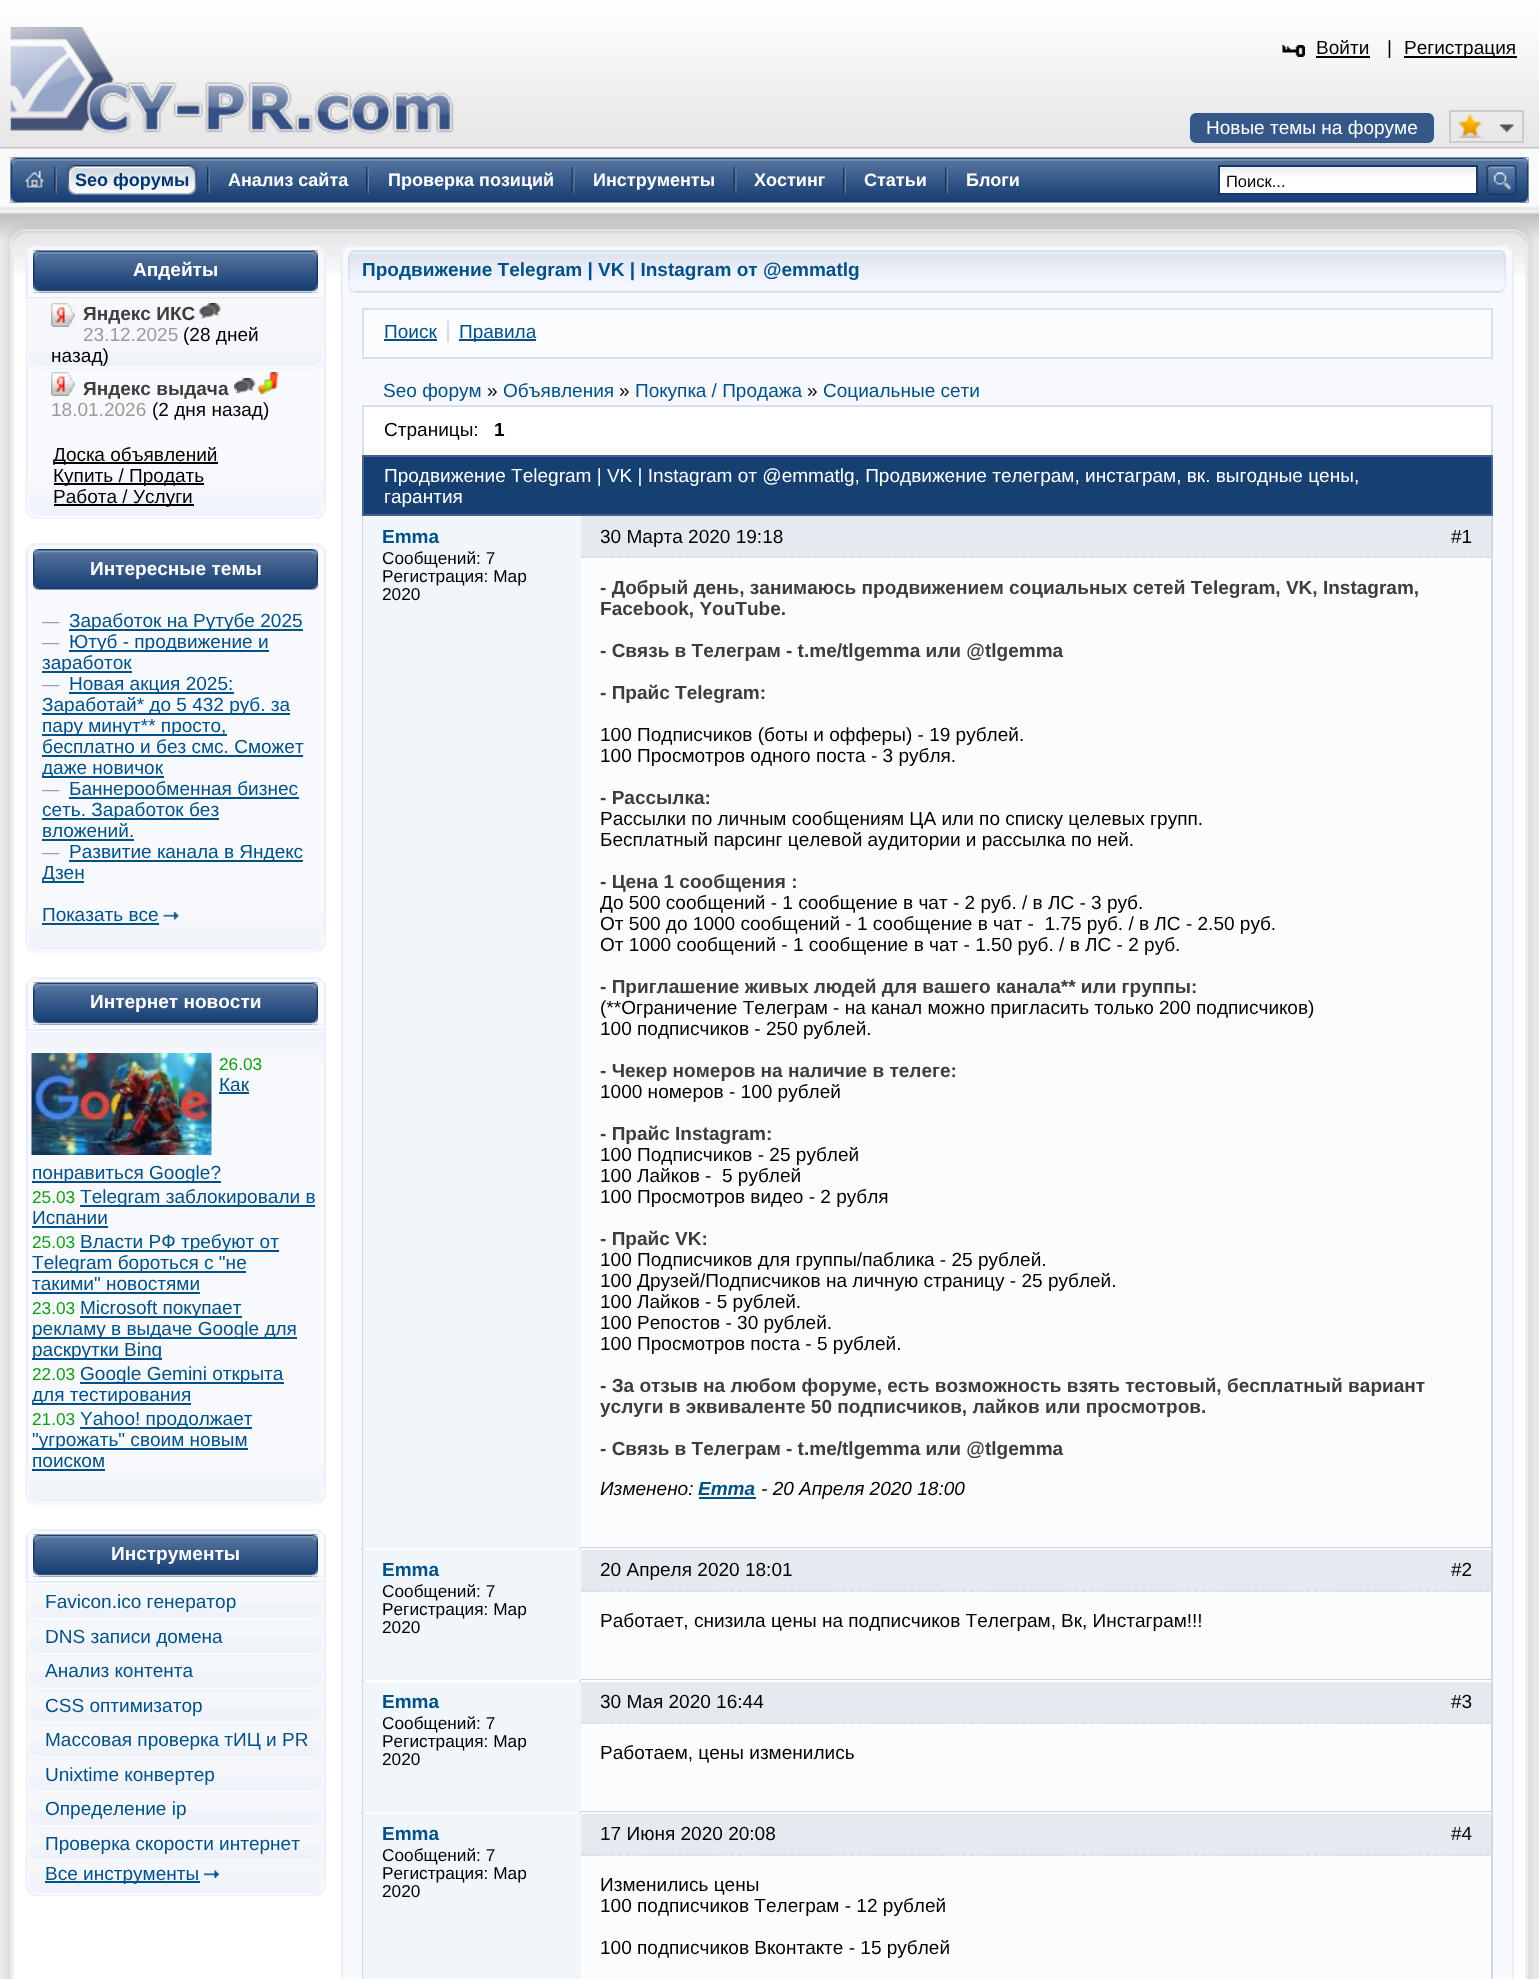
<?xml version="1.0" encoding="UTF-8"?>
<svg xmlns="http://www.w3.org/2000/svg" xmlns:xlink="http://www.w3.org/1999/xlink" width="1539" height="1979">
  <style>*{font-kerning:none!important;font-variant-ligatures:none!important}</style>
  <rect width="100%" height="100%" fill="#ffffff" />
  <image x="0" y="0" width="1539" height="222" xlink:href="image1.png" />
  <image x="10" y="27" width="444" height="107" xlink:href="image2.png" />
  <image x="1282" y="45" width="23" height="12" xlink:href="image3.png" />
  <rect x="1316" y="56" width="54" height="2" fill="#000000" />
  <rect x="1404" y="56" width="113" height="2" fill="#000000" />
  <rect x="1191" y="114" width="242" height="28" rx="5" fill="#355888" stroke="#355888" stroke-width="2" />
  <image x="1500" y="124" width="14" height="8" xlink:href="image4.png" />
  <rect x="1450" y="111" width="73" height="31" fill="none" stroke="#cccccc" stroke-width="2" />
  <image x="1458" y="114" width="24" height="24" xlink:href="image5.png" />
  <image x="10" y="157" width="1519" height="46" xlink:href="image7.png" />
  <image x="25" y="171" width="19" height="17" xlink:href="image6.png" />
  <image x="10" y="157" width="8" height="46" xlink:href="image8.png" />
  <image x="54" y="166" width="3" height="28" xlink:href="image9.png" />
  <image x="67" y="165" width="8" height="30" xlink:href="image10.png" />
  <image x="75" y="165" width="122" height="30" xlink:href="image11.png" />
  <image x="207" y="166" width="3" height="28" xlink:href="image9.png" />
  <image x="366" y="166" width="3" height="28" xlink:href="image12.png" />
  <image x="571" y="166" width="4" height="28" xlink:href="image13.png" />
  <image x="733" y="166" width="4" height="28" xlink:href="image13.png" />
  <image x="843" y="166" width="3" height="28" xlink:href="image9.png" />
  <image x="945" y="166" width="3" height="28" xlink:href="image9.png" />
  <image x="1521" y="157" width="8" height="46" xlink:href="image14.png" />
  <image x="1220" y="167" width="256" height="26" xlink:href="image15.png" />
  <rect x="1219" y="166" width="258" height="28" fill="none" stroke="#173867" stroke-width="2" />
  <image x="1486" y="165" width="31" height="30" xlink:href="image16.png" />
  <image x="13" y="222" width="1513" height="53" xlink:href="image17.png" />
  <image x="0" y="244" width="14" height="1735" xlink:href="image18.png" />
  <image x="1525" y="244" width="14" height="1735" xlink:href="image19.png" />
  <image x="0" y="222" width="25" height="23" xlink:href="image20.png" />
  <image x="1514" y="222" width="25" height="23" xlink:href="image21.png" />
  <rect x="28" y="369" width="296" height="110" fill="#f8f9fc" />
  <image x="25" y="478" width="299" height="29" xlink:href="image27.png" />
  <rect x="26" y="297" width="2" height="182" fill="#e9eef8" />
  <rect x="27" y="297" width="297" height="2" fill="#e9eef8" />
  <image x="25" y="244" width="13" height="55" xlink:href="image22.png" />
  <rect x="38" y="247" width="276" height="4" fill="#f8f9fc" />
  <rect x="38" y="245" width="276" height="2" fill="#e9eef8" />
  <image x="313" y="244" width="13" height="7" xlink:href="image23.png" />
  <rect x="28" y="251" width="296" height="46" fill="#f8f9fc" />
  <rect x="26" y="251" width="2" height="46" fill="#e9eef8" />
  <rect x="33" y="292" width="285" height="1" fill="#355888" />
  <image x="33" y="250" width="285" height="43" xlink:href="image24.png" />
  <image x="33" y="250" width="6" height="43" xlink:href="image25.png" />
  <image x="312" y="250" width="6" height="43" xlink:href="image26.png" />
  <rect x="324" y="251" width="2" height="256" fill="#e9eef8" />
  <image x="27" y="299" width="297" height="1" xlink:href="image28.png" />
  <rect x="27" y="300" width="297" height="50" fill="#f6f7fb" />
  <image x="27" y="350" width="297" height="19" xlink:href="image29.png" />
  <image x="51" y="303" width="24" height="24" xlink:href="image30.png" />
  <image x="199" y="303" width="22" height="16" xlink:href="image31.png" />
  <image x="51" y="372" width="24" height="24" xlink:href="image32.png" />
  <image x="234" y="378" width="22" height="16" xlink:href="image33.png" />
  <image x="257" y="372" width="22" height="23" xlink:href="image34.png" />
  <rect x="54" y="462" width="164" height="2" fill="#000000" />
  <rect x="54" y="483" width="150" height="2" fill="#000000" />
  <rect x="54" y="504" width="140" height="2" fill="#000000" />
  <image x="37" y="507" width="277" height="12" xlink:href="image36.png" />
  <image x="25" y="478" width="13" height="41" xlink:href="image35.png" />
  <image x="313" y="495" width="13" height="24" xlink:href="image37.png" />
  <rect x="28" y="596" width="296" height="345" fill="#f8f9fc" />
  <rect x="26" y="596" width="2" height="316" fill="#e9eef8" />
  <image x="25" y="543" width="13" height="54" xlink:href="image38.png" />
  <rect x="38" y="545" width="276" height="4" fill="#f8f9fc" />
  <rect x="38" y="543" width="276" height="2" fill="#e9eef8" />
  <image x="314" y="543" width="12" height="6" xlink:href="image39.png" />
  <rect x="28" y="549" width="296" height="47" fill="#f8f9fc" />
  <rect x="26" y="549" width="2" height="47" fill="#e9eef8" />
  <image x="33" y="549" width="285" height="42" xlink:href="image40.png" />
  <image x="33" y="549" width="6" height="41" xlink:href="image41.png" />
  <image x="312" y="549" width="6" height="41" xlink:href="image42.png" />
  <image x="25" y="912" width="299" height="29" xlink:href="image43.png" />
  <rect x="324" y="549" width="2" height="392" fill="#e9eef8" />
  <rect x="69" y="629" width="234" height="2" fill="#005187" />
  <rect x="69" y="650" width="200" height="2" fill="#005187" />
  <rect x="42" y="671" width="90" height="2" fill="#005187" />
  <rect x="69" y="692" width="165" height="2" fill="#005187" />
  <rect x="42" y="713" width="248" height="2" fill="#005187" />
  <rect x="42" y="734" width="185" height="2" fill="#005187" />
  <rect x="42" y="755" width="261" height="2" fill="#005187" />
  <rect x="42" y="776" width="122" height="2" fill="#005187" />
  <rect x="69" y="797" width="230" height="2" fill="#005187" />
  <rect x="42" y="818" width="177" height="2" fill="#005187" />
  <rect x="42" y="839" width="92" height="2" fill="#005187" />
  <rect x="69" y="860" width="234" height="2" fill="#005187" />
  <rect x="42" y="881" width="42" height="2" fill="#005187" />
  <rect x="42" y="923" width="117" height="2" fill="#005187" />
  <image x="163" y="912" width="16" height="8" xlink:href="image44.png" />
  <image x="37" y="941" width="277" height="12" xlink:href="image46.png" />
  <image x="25" y="912" width="13" height="41" xlink:href="image45.png" />
  <image x="313" y="929" width="13" height="24" xlink:href="image47.png" />
  <rect x="26" y="1029" width="2" height="435" fill="#e9eef8" />
  <rect x="27" y="1029" width="297" height="2" fill="#e9eef8" />
  <image x="25" y="976" width="13" height="55" xlink:href="image48.png" />
  <rect x="38" y="979" width="276" height="4" fill="#f8f9fc" />
  <rect x="38" y="977" width="276" height="2" fill="#e9eef8" />
  <image x="313" y="976" width="13" height="7" xlink:href="image49.png" />
  <rect x="28" y="983" width="296" height="46" fill="#f8f9fc" />
  <rect x="26" y="983" width="2" height="46" fill="#e9eef8" />
  <rect x="33" y="1024" width="285" height="1" fill="#355888" />
  <image x="33" y="982" width="285" height="43" xlink:href="image50.png" />
  <image x="33" y="982" width="6" height="43" xlink:href="image51.png" />
  <image x="312" y="982" width="6" height="43" xlink:href="image26.png" />
  <rect x="28" y="1065" width="296" height="428" fill="#f8f9fc" />
  <image x="25" y="1464" width="299" height="29" xlink:href="image43.png" />
  <rect x="324" y="983" width="2" height="510" fill="#e9eef8" />
  <image x="27" y="1031" width="297" height="34" xlink:href="image52.png" />
  <image x="31" y="1053" width="181" height="102" xlink:href="image53.png" />
  <rect x="219" y="1092" width="30" height="2" fill="#005187" />
  <rect x="32" y="1181" width="189" height="2" fill="#005187" />
  <rect x="80" y="1205" width="235" height="2" fill="#005187" />
  <rect x="32" y="1226" width="76" height="2" fill="#005187" />
  <rect x="80" y="1250" width="199" height="2" fill="#005187" />
  <rect x="32" y="1271" width="214" height="2" fill="#005187" />
  <rect x="32" y="1292" width="168" height="2" fill="#005187" />
  <rect x="80" y="1316" width="162" height="2" fill="#005187" />
  <rect x="32" y="1337" width="265" height="2" fill="#005187" />
  <rect x="32" y="1358" width="130" height="2" fill="#005187" />
  <rect x="80" y="1382" width="204" height="2" fill="#005187" />
  <rect x="32" y="1403" width="159" height="2" fill="#005187" />
  <rect x="80" y="1427" width="172" height="2" fill="#005187" />
  <rect x="32" y="1448" width="216" height="2" fill="#005187" />
  <rect x="32" y="1469" width="73" height="2" fill="#005187" />
  <image x="37" y="1493" width="277" height="12" xlink:href="image46.png" />
  <image x="313" y="1481" width="13" height="24" xlink:href="image47.png" />
  <image x="25" y="1855" width="298" height="29" xlink:href="image55.png" />
  <rect x="26" y="1581" width="1" height="275" fill="#e9eef8" />
  <rect x="27" y="1581" width="297" height="2" fill="#e9eef8" />
  <image x="25" y="1528" width="13" height="55" xlink:href="image48.png" />
  <rect x="38" y="1531" width="276" height="4" fill="#f8f9fc" />
  <rect x="38" y="1529" width="276" height="2" fill="#e9eef8" />
  <image x="313" y="1528" width="13" height="7" xlink:href="image49.png" />
  <rect x="28" y="1535" width="296" height="46" fill="#f8f9fc" />
  <rect x="26" y="1535" width="2" height="46" fill="#e9eef8" />
  <rect x="33" y="1576" width="285" height="1" fill="#355888" />
  <image x="33" y="1534" width="285" height="43" xlink:href="image50.png" />
  <image x="33" y="1534" width="6" height="43" xlink:href="image51.png" />
  <image x="312" y="1534" width="6" height="43" xlink:href="image26.png" />
  <rect x="324" y="1535" width="2" height="349" fill="#e9eef8" />
  <image x="27" y="1583" width="297" height="1" xlink:href="image28.png" />
  <rect x="27" y="1584" width="297" height="260" fill="#f6f7fb" />
  <image x="27" y="1603" width="297" height="19" xlink:href="image56.png" />
  <image x="27" y="1637" width="297" height="19" xlink:href="image29.png" />
  <image x="27" y="1672" width="297" height="19" xlink:href="image56.png" />
  <image x="27" y="1706" width="297" height="19" xlink:href="image29.png" />
  <image x="27" y="1741" width="297" height="19" xlink:href="image56.png" />
  <image x="27" y="1775" width="297" height="19" xlink:href="image29.png" />
  <image x="27" y="1810" width="297" height="19" xlink:href="image56.png" />
  <image x="27" y="1844" width="297" height="19" xlink:href="image29.png" />
  <rect x="45" y="1881" width="155" height="2" fill="#005187" />
  <image x="204" y="1870" width="15" height="8" xlink:href="image57.png" />
  <image x="37" y="1884" width="277" height="12" xlink:href="image36.png" />
  <image x="25" y="1855" width="13" height="41" xlink:href="image58.png" />
  <image x="313" y="1856" width="13" height="40" xlink:href="image59.png" />
  <rect x="343" y="293" width="1169" height="1686" fill="#f8f9fc" />
  <rect x="341" y="293" width="2" height="1686" fill="#e9eef8" />
  <image x="340" y="244" width="13" height="55" xlink:href="image60.png" />
  <rect x="353" y="247" width="1149" height="4" fill="#f8f9fc" />
  <rect x="353" y="245" width="1149" height="2" fill="#e9eef8" />
  <image x="1501" y="244" width="13" height="7" xlink:href="image61.png" />
  <rect x="343" y="251" width="1169" height="42" fill="#f8f9fc" />
  <rect x="341" y="251" width="2" height="42" fill="#e9eef8" />
  <image x="348" y="250" width="1158" height="43" xlink:href="image62.png" />
  <image x="348" y="250" width="6" height="43" xlink:href="image63.png" />
  <image x="1500" y="250" width="6" height="43" xlink:href="image64.png" />
  <rect x="1512" y="251" width="2" height="1728" fill="#e9eef8" />
  <rect x="363" y="309" width="1129" height="49" fill="#fbfcfd" stroke="#dae0e7" stroke-width="2" />
  <rect x="447" y="321" width="2" height="21" fill="#d4dae3" />
  <rect x="384" y="339" width="53" height="2" fill="#005187" />
  <rect x="459" y="339" width="77" height="2" fill="#005187" />
  <rect x="364" y="407" width="1127" height="48" fill="#ffffff" />
  <rect x="362" y="405" width="1131" height="2" fill="#dae0e7" />
  <rect x="1491" y="405" width="2" height="50" fill="#dae0e7" />
  <rect x="362" y="405" width="2" height="50" fill="#dae0e7" />
  <rect x="363" y="456" width="1129" height="59" fill="#163f72" stroke="#406390" stroke-width="2" />
  <rect x="581" y="1547" width="912" height="1" fill="#d0d3d8" />
  <rect x="362" y="516" width="1" height="1032" fill="#d5dae0" />
  <rect x="581" y="516" width="910" height="42" fill="#e5eaf0" />
  <path d="M 580.5 557 h 910.5" fill="none" stroke="#d6dde5" stroke-width="1.5" stroke-dasharray="4.5 2.98" />
  <rect x="363" y="516" width="218" height="1032" fill="#f1f6fa" />
  <rect x="581" y="558" width="910" height="989" fill="#fbfcfd" />
  <rect x="1491" y="516" width="2" height="1032" fill="#d5dae0" />
  <rect x="699" y="1497" width="57" height="2" fill="#005187" />
  <rect x="362" y="1548" width="1131" height="2" fill="#ffffff" />
  <rect x="581" y="1679" width="912" height="1" fill="#d0d3d8" />
  <rect x="579" y="1548" width="2" height="2" fill="#d6dde5" />
  <rect x="362" y="1548" width="2" height="132" fill="#d5dae0" />
  <rect x="581" y="1550" width="910" height="42" fill="#e5eaf0" />
  <path d="M 580.5 1591 h 910.5" fill="none" stroke="#d6dde5" stroke-width="1.5" stroke-dasharray="4.5 2.98" />
  <rect x="363" y="1550" width="218" height="130" fill="#f1f6fa" />
  <rect x="581" y="1592" width="910" height="87" fill="#fbfcfd" />
  <rect x="1491" y="1548" width="2" height="132" fill="#d5dae0" />
  <rect x="362" y="1680" width="1131" height="2" fill="#ffffff" />
  <rect x="581" y="1811" width="912" height="1" fill="#d0d3d8" />
  <rect x="579" y="1680" width="2" height="2" fill="#d6dde5" />
  <rect x="362" y="1680" width="2" height="132" fill="#d5dae0" />
  <rect x="581" y="1682" width="910" height="42" fill="#e5eaf0" />
  <path d="M 580.5 1723 h 910.5" fill="none" stroke="#d6dde5" stroke-width="1.5" stroke-dasharray="4.5 2.98" />
  <rect x="363" y="1682" width="218" height="130" fill="#f1f6fa" />
  <rect x="581" y="1724" width="910" height="87" fill="#fbfcfd" />
  <rect x="1491" y="1680" width="2" height="132" fill="#d5dae0" />
  <rect x="362" y="1812" width="1131" height="2" fill="#ffffff" />
  <rect x="579" y="1812" width="2" height="2" fill="#d6dde5" />
  <rect x="362" y="1812" width="2" height="167" fill="#d5dae0" />
  <rect x="581" y="1814" width="910" height="42" fill="#e5eaf0" />
  <path d="M 580.5 1855 h 910.5" fill="none" stroke="#d6dde5" stroke-width="1.5" stroke-dasharray="4.5 2.98" />
  <rect x="363" y="1814" width="218" height="165" fill="#f1f6fa" />
  <rect x="581" y="1856" width="910" height="123" fill="#fbfcfd" />
  <rect x="1491" y="1812" width="2" height="167" fill="#d5dae0" />
  <text x="1316" y="54" style="font-family: Liberation Sans; font-size: 19.05px; fill: #000000">Войти</text>
  <text x="1387" y="54" style="font-family: Liberation Sans; font-size: 19.05px; fill: #000000">|</text>
  <text x="1404" y="54" style="font-family: Liberation Sans; font-size: 19.05px; fill: #000000">Регистрация</text>
  <text x="1206" y="134" style="font-family: Liberation Sans; font-size: 19.05px; fill: #ffffff">Новые темы на форуме</text>
  <text x="75" y="186" style="font-family: Liberation Sans; font-size: 18px; font-weight: bold; fill: #003573">Seo форумы</text>
  <text x="228" y="186" style="font-family: Liberation Sans; font-size: 18px; font-weight: bold; fill: #ffffff">Анализ сайта</text>
  <text x="388" y="186" style="font-family: Liberation Sans; font-size: 18px; font-weight: bold; fill: #ffffff">Проверка позиций</text>
  <text x="593" y="186" style="font-family: Liberation Sans; font-size: 18px; font-weight: bold; fill: #ffffff">Инструменты</text>
  <text x="754" y="186" style="font-family: Liberation Sans; font-size: 18px; font-weight: bold; fill: #ffffff">Хостинг</text>
  <text x="864" y="186" style="font-family: Liberation Sans; font-size: 18px; font-weight: bold; fill: #ffffff">Статьи</text>
  <text x="966" y="186" style="font-family: Liberation Sans; font-size: 18px; font-weight: bold; fill: #ffffff">Блоги</text>
  <text x="1226" y="187" style="font-family: Liberation Sans; font-size: 16.5px; fill: #000000">Поиск...</text>
  <text x="133" y="276" style="font-family: Liberation Sans; font-size: 19.05px; font-weight: bold; fill: #ffffff">Апдейты</text>
  <text x="83" y="320" style="font-family: Liberation Sans; font-size: 19.05px; font-weight: bold; fill: #3d3d3d">Яндекс ИКС</text>
  <text x="83" y="341" style="font-family: Liberation Sans; font-size: 19.05px; fill: #9b9b9b">23.12.2025</text>
  <text x="183" y="341" style="font-family: Liberation Sans; font-size: 19.05px; fill: #000000">(28 дней</text>
  <text x="51" y="362" style="font-family: Liberation Sans; font-size: 19.05px; fill: #000000">назад)</text>
  <text x="83" y="395" style="font-family: Liberation Sans; font-size: 19.05px; font-weight: bold; fill: #3d3d3d">Яндекс выдача</text>
  <text x="51" y="416" style="font-family: Liberation Sans; font-size: 19.05px; fill: #9b9b9b">18.01.2026</text>
  <text x="152" y="416" style="font-family: Liberation Sans; font-size: 19.05px; fill: #000000">(2 дня назад)</text>
  <text x="53" y="461" style="font-family: Liberation Sans; font-size: 19.05px; fill: #000000">Доска объявлений</text>
  <text x="53" y="482" style="font-family: Liberation Sans; font-size: 19.05px; fill: #000000">Купить / Продать</text>
  <text x="53" y="503" style="font-family: Liberation Sans; font-size: 19.05px; fill: #000000">Работа / Услуги</text>
  <text x="90" y="575" style="font-family: Liberation Sans; font-size: 19.05px; font-weight: bold; fill: #ffffff">Интересные темы</text>
  <text x="42" y="627" style="font-family: Liberation Sans; font-size: 17.25px; fill: #9b9b9b">—</text>
  <text x="69" y="627" style="font-family: Liberation Sans; font-size: 19.05px; fill: #005187">Заработок на Рутубе 2025</text>
  <text x="42" y="648" style="font-family: Liberation Sans; font-size: 17.25px; fill: #9b9b9b">—</text>
  <text x="69" y="648" style="font-family: Liberation Sans; font-size: 19.05px; fill: #005187">Ютуб - продвижение и</text>
  <text x="42" y="669" style="font-family: Liberation Sans; font-size: 19.05px; fill: #005187">заработок</text>
  <text x="42" y="690" style="font-family: Liberation Sans; font-size: 17.25px; fill: #9b9b9b">—</text>
  <text x="69" y="690" style="font-family: Liberation Sans; font-size: 19.05px; fill: #005187">Новая акция 2025:</text>
  <text x="42" y="711" style="font-family: Liberation Sans; font-size: 19.05px; fill: #005187">Заработай* до 5 432 руб. за</text>
  <text x="42" y="732" style="font-family: Liberation Sans; font-size: 19.05px; fill: #005187">пару минут** просто,</text>
  <text x="42" y="753" style="font-family: Liberation Sans; font-size: 19.05px; fill: #005187">бесплатно и без смс. Сможет</text>
  <text x="42" y="774" style="font-family: Liberation Sans; font-size: 19.05px; fill: #005187">даже новичок</text>
  <text x="42" y="795" style="font-family: Liberation Sans; font-size: 17.25px; fill: #9b9b9b">—</text>
  <text x="69" y="795" style="font-family: Liberation Sans; font-size: 19.05px; fill: #005187">Баннерообменная бизнес</text>
  <text x="42" y="816" style="font-family: Liberation Sans; font-size: 19.05px; fill: #005187">сеть. Заработок без</text>
  <text x="42" y="837" style="font-family: Liberation Sans; font-size: 19.05px; fill: #005187">вложений.</text>
  <text x="42" y="858" style="font-family: Liberation Sans; font-size: 17.25px; fill: #9b9b9b">—</text>
  <text x="69" y="858" style="font-family: Liberation Sans; font-size: 19.05px; fill: #005187">Развитие канала в Яндекс</text>
  <text x="42" y="879" style="font-family: Liberation Sans; font-size: 19.05px; fill: #005187">Дзен</text>
  <text x="42" y="921" style="font-family: Liberation Sans; font-size: 19.05px; fill: #005187">Показать все</text>
  <text x="90" y="1008" style="font-family: Liberation Sans; font-size: 19.05px; font-weight: bold; fill: #ffffff">Интернет новости</text>
  <text x="219" y="1070" style="font-family: Liberation Sans; font-size: 17.25px; fill: #109f14">26.03</text>
  <text x="219" y="1091" style="font-family: Liberation Sans; font-size: 19.05px; fill: #005187">Как</text>
  <text x="32" y="1179" style="font-family: Liberation Sans; font-size: 19.05px; fill: #005187">понравиться Google?</text>
  <text x="32" y="1203" style="font-family: Liberation Sans; font-size: 17.25px; fill: #109f14">25.03</text>
  <text x="80" y="1203" style="font-family: Liberation Sans; font-size: 19.05px; fill: #005187">Telegram заблокировали в</text>
  <text x="32" y="1224" style="font-family: Liberation Sans; font-size: 19.05px; fill: #005187">Испании</text>
  <text x="32" y="1248" style="font-family: Liberation Sans; font-size: 17.25px; fill: #109f14">25.03</text>
  <text x="80" y="1248" style="font-family: Liberation Sans; font-size: 19.05px; fill: #005187">Власти РФ требуют от</text>
  <text x="32" y="1269" style="font-family: Liberation Sans; font-size: 19.05px; fill: #005187">Telegram бороться с "не</text>
  <text x="32" y="1290" style="font-family: Liberation Sans; font-size: 19.05px; fill: #005187">такими" новостями</text>
  <text x="32" y="1314" style="font-family: Liberation Sans; font-size: 17.25px; fill: #109f14">23.03</text>
  <text x="80" y="1314" style="font-family: Liberation Sans; font-size: 19.05px; fill: #005187">Microsoft покупает</text>
  <text x="32" y="1335" style="font-family: Liberation Sans; font-size: 19.05px; fill: #005187">рекламу в выдаче Google для</text>
  <text x="32" y="1356" style="font-family: Liberation Sans; font-size: 19.05px; fill: #005187">раскрутки Bing</text>
  <text x="32" y="1380" style="font-family: Liberation Sans; font-size: 17.25px; fill: #109f14">22.03</text>
  <text x="80" y="1380" style="font-family: Liberation Sans; font-size: 19.05px; fill: #005187">Google Gemini открыта</text>
  <text x="32" y="1401" style="font-family: Liberation Sans; font-size: 19.05px; fill: #005187">для тестирования</text>
  <text x="32" y="1425" style="font-family: Liberation Sans; font-size: 17.25px; fill: #109f14">21.03</text>
  <text x="80" y="1425" style="font-family: Liberation Sans; font-size: 19.05px; fill: #005187">Yahoo! продолжает</text>
  <text x="32" y="1446" style="font-family: Liberation Sans; font-size: 19.05px; fill: #005187">"угрожать" своим новым</text>
  <text x="32" y="1467" style="font-family: Liberation Sans; font-size: 19.05px; fill: #005187">поиском</text>
  <image x="25" y="1464" width="13" height="41" xlink:href="image54.png" />
  <text x="111" y="1560" style="font-family: Liberation Sans; font-size: 19.05px; font-weight: bold; fill: #ffffff">Инструменты</text>
  <text x="45" y="1608" style="font-family: Liberation Sans; font-size: 19.05px; fill: #005187">Favicon.ico генератор</text>
  <text x="45" y="1643" style="font-family: Liberation Sans; font-size: 19.05px; fill: #005187">DNS записи домена</text>
  <text x="45" y="1677" style="font-family: Liberation Sans; font-size: 19.05px; fill: #005187">Анализ контента</text>
  <text x="45" y="1712" style="font-family: Liberation Sans; font-size: 19.05px; fill: #005187">CSS оптимизатор</text>
  <text x="45" y="1746" style="font-family: Liberation Sans; font-size: 19.05px; fill: #005187">Массовая проверка тИЦ и PR</text>
  <text x="45" y="1781" style="font-family: Liberation Sans; font-size: 19.05px; fill: #005187">Unixtime конвертер</text>
  <text x="45" y="1815" style="font-family: Liberation Sans; font-size: 19.05px; fill: #005187">Определение ip</text>
  <text x="45" y="1850" style="font-family: Liberation Sans; font-size: 19.05px; fill: #005187">Проверка скорости интернет</text>
  <text x="45" y="1880" style="font-family: Liberation Sans; font-size: 19.05px; fill: #005187">Все инструменты</text>
  <text x="362" y="276" style="font-family: Liberation Sans; font-size: 19.05px; font-weight: bold; fill: #005187">Продвижение Telegram | VK | Instagram от @emmatlg</text>
  <text x="384" y="338" style="font-family: Liberation Sans; font-size: 19.05px; fill: #005187">Поиск</text>
  <text x="459" y="338" style="font-family: Liberation Sans; font-size: 19.05px; fill: #005187">Правила</text>
  <text x="383" y="397" style="font-family: Liberation Sans; font-size: 19.05px; fill: #005187">Seo форум</text>
  <text x="487" y="397" style="font-family: Liberation Sans; font-size: 19.05px; fill: #000000">»</text>
  <text x="503" y="397" style="font-family: Liberation Sans; font-size: 19.05px; fill: #005187">Объявления</text>
  <text x="619" y="397" style="font-family: Liberation Sans; font-size: 19.05px; fill: #000000">»</text>
  <text x="635" y="397" style="font-family: Liberation Sans; font-size: 19.05px; fill: #005187">Покупка / Продажа</text>
  <text x="807" y="397" style="font-family: Liberation Sans; font-size: 19.05px; fill: #000000">»</text>
  <text x="823" y="397" style="font-family: Liberation Sans; font-size: 19.05px; fill: #005187">Социальные сети</text>
  <text x="384" y="436" style="font-family: Liberation Sans; font-size: 19.05px; fill: #000000">Страницы:</text>
  <text x="494" y="436" style="font-family: Liberation Sans; font-size: 19.05px; font-weight: bold; fill: #000000">1</text>
  <text x="384" y="482" style="font-family: Liberation Sans; font-size: 19.05px; fill: #ffffff">Продвижение Telegram | VK | Instagram от @emmatlg, Продвижение телеграм,</text>
  <text x="1085" y="482" style="font-family: Liberation Sans; font-size: 19.05px; fill: #ffffff">инстаграм, вк. выгодные цены,</text>
  <text x="384" y="503" style="font-family: Liberation Sans; font-size: 19.05px; fill: #ffffff">гарантия</text>
  <text x="382" y="543" style="font-family: Liberation Sans; font-size: 19.05px; font-weight: bold; fill: #005187">Emma</text>
  <text x="382" y="564" style="font-family: Liberation Sans; font-size: 17.25px; fill: #000000">Сообщений: 7</text>
  <text x="382" y="582" style="font-family: Liberation Sans; font-size: 17.25px; fill: #000000">Регистрация: Мар</text>
  <text x="382" y="600" style="font-family: Liberation Sans; font-size: 17.25px; fill: #000000">2020</text>
  <text x="600" y="543" style="font-family: Liberation Sans; font-size: 19.05px; fill: #000000">30 Марта 2020 19:18</text>
  <text x="1451" y="543" style="font-family: Liberation Sans; font-size: 19.05px; fill: #000000">#1</text>
  <text x="600" y="594" style="font-family: Liberation Sans; font-size: 19.05px; font-weight: bold; fill: #3d3d3d">- Добрый день, занимаюсь продвижением социальных сетей Telegram, VK, Instagram,</text>
  <text x="600" y="615" style="font-family: Liberation Sans; font-size: 19.05px; font-weight: bold; fill: #3d3d3d">Facebook, YouTube.</text>
  <text x="600" y="657" style="font-family: Liberation Sans; font-size: 19.05px; font-weight: bold; fill: #3d3d3d">- Связь в Телеграм - t.me/tlgemma или @tlgemma</text>
  <text x="600" y="699" style="font-family: Liberation Sans; font-size: 19.05px; font-weight: bold; fill: #3d3d3d">- Прайс Telegram:</text>
  <text x="600" y="741" style="font-family: Liberation Sans; font-size: 19.05px; fill: #000000">100 Пoдпиcчиков (боты и офферы) - 19 pyблeй.</text>
  <text x="600" y="762" style="font-family: Liberation Sans; font-size: 19.05px; fill: #000000">100 Пpocмотрoв одного поста - 3 рубля.</text>
  <text x="600" y="804" style="font-family: Liberation Sans; font-size: 19.05px; font-weight: bold; fill: #3d3d3d">- Рассылка:</text>
  <text x="600" y="825" style="font-family: Liberation Sans; font-size: 19.05px; fill: #000000">Рассылки по личным сообщениям ЦА или по списку целевых групп.</text>
  <text x="600" y="846" style="font-family: Liberation Sans; font-size: 19.05px; fill: #000000">Бесплатный парсинг целевой аудитории и рассылка по ней.</text>
  <text x="600" y="888" style="font-family: Liberation Sans; font-size: 19.05px; font-weight: bold; fill: #3d3d3d">- Цена 1 сообщения :</text>
  <text x="600" y="909" style="font-family: Liberation Sans; font-size: 19.05px; fill: #000000">До 500 сообщений - 1 сообщение в чат - 2 руб. / в ЛС - 3 руб.</text>
  <text x="600" y="930" style="font-family: Liberation Sans; font-size: 19.05px; fill: #000000" xml:space="preserve">От 500 до 1000 сообщений - 1 сообщение в чат -  1.75 руб. / в ЛС - 2.50 руб.</text>
  <text x="600" y="951" style="font-family: Liberation Sans; font-size: 19.05px; fill: #000000">От 1000 сообщений - 1 сообщение в чат - 1.50 руб. / в ЛС - 2 руб.</text>
  <text x="600" y="993" style="font-family: Liberation Sans; font-size: 19.05px; font-weight: bold; fill: #3d3d3d">- Приглашение живых людей для вашего канала** или группы:</text>
  <text x="600" y="1014" style="font-family: Liberation Sans; font-size: 19.05px; fill: #000000">(**Ограничение Телеграм - на канал можно пригласить только 200 подписчиков)</text>
  <text x="600" y="1035" style="font-family: Liberation Sans; font-size: 19.05px; fill: #000000">100 пoдпиcчикoв - 250 pyблeй.</text>
  <text x="600" y="1077" style="font-family: Liberation Sans; font-size: 19.05px; font-weight: bold; fill: #3d3d3d">- Чекер номеров на наличие в телеге:</text>
  <text x="600" y="1098" style="font-family: Liberation Sans; font-size: 19.05px; fill: #000000">1000 номеров - 100 рублей</text>
  <text x="600" y="1140" style="font-family: Liberation Sans; font-size: 19.05px; font-weight: bold; fill: #3d3d3d">- Прайс Instagram:</text>
  <text x="600" y="1161" style="font-family: Liberation Sans; font-size: 19.05px; fill: #000000">100 Подписчиков - 25 рублей</text>
  <text x="600" y="1182" style="font-family: Liberation Sans; font-size: 19.05px; fill: #000000" xml:space="preserve">100 Лайков -  5 рублей</text>
  <text x="600" y="1203" style="font-family: Liberation Sans; font-size: 19.05px; fill: #000000">100 Просмотров видео - 2 рубля</text>
  <text x="600" y="1245" style="font-family: Liberation Sans; font-size: 19.05px; font-weight: bold; fill: #3d3d3d">- Прайс VK:</text>
  <text x="600" y="1266" style="font-family: Liberation Sans; font-size: 19.05px; fill: #000000">100 Пoдпиcчикoв для группы/паблика - 25 pyблeй.</text>
  <text x="600" y="1287" style="font-family: Liberation Sans; font-size: 19.05px; fill: #000000">100 Друзей/Подписчиков на личную страницу - 25 pyблeй.</text>
  <text x="600" y="1308" style="font-family: Liberation Sans; font-size: 19.05px; fill: #000000">100 Лайков - 5 рублей.</text>
  <text x="600" y="1329" style="font-family: Liberation Sans; font-size: 19.05px; fill: #000000">100 Репостов - 30 рублей.</text>
  <text x="600" y="1350" style="font-family: Liberation Sans; font-size: 19.05px; fill: #000000">100 Просмотров поста - 5 рублей.</text>
  <text x="600" y="1392" style="font-family: Liberation Sans; font-size: 19.05px; font-weight: bold; fill: #3d3d3d">- За отзыв на любом форуме, есть возможность взять тестовый, бесплатный вариант</text>
  <text x="600" y="1413" style="font-family: Liberation Sans; font-size: 19.05px; font-weight: bold; fill: #3d3d3d">услуги в эквиваленте 50 подписчиков, лайков или просмотров.</text>
  <text x="600" y="1455" style="font-family: Liberation Sans; font-size: 19.05px; font-weight: bold; fill: #3d3d3d">- Связь в Телеграм - t.me/tlgemma или @tlgemma</text>
  <text x="600" y="1495" style="font-family: Liberation Sans; font-size: 19.05px; font-style: italic; fill: #000000">Изменено:</text>
  <text x="698" y="1495" style="font-family: Liberation Sans; font-size: 19.05px; font-weight: bold; font-style: italic; fill: #005187">Emma</text>
  <text x="761" y="1495" style="font-family: Liberation Sans; font-size: 19.05px; font-style: italic; fill: #000000">- 20 Апреля 2020 18:00</text>
  <text x="382" y="1576" style="font-family: Liberation Sans; font-size: 19.05px; font-weight: bold; fill: #005187">Emma</text>
  <text x="382" y="1597" style="font-family: Liberation Sans; font-size: 17.25px; fill: #000000">Сообщений: 7</text>
  <text x="382" y="1615" style="font-family: Liberation Sans; font-size: 17.25px; fill: #000000">Регистрация: Мар</text>
  <text x="382" y="1633" style="font-family: Liberation Sans; font-size: 17.25px; fill: #000000">2020</text>
  <text x="600" y="1576" style="font-family: Liberation Sans; font-size: 19.05px; fill: #000000">20 Апреля 2020 18:01</text>
  <text x="1451" y="1576" style="font-family: Liberation Sans; font-size: 19.05px; fill: #000000">#2</text>
  <text x="600" y="1627" style="font-family: Liberation Sans; font-size: 19.05px; fill: #000000">Работает, снизила цены на подписчиков Телеграм,</text>
  <text x="1061" y="1627" style="font-family: Liberation Sans; font-size: 19.05px; fill: #000000">Вк, Инстаграм!!!</text>
  <text x="382" y="1708" style="font-family: Liberation Sans; font-size: 19.05px; font-weight: bold; fill: #005187">Emma</text>
  <text x="382" y="1729" style="font-family: Liberation Sans; font-size: 17.25px; fill: #000000">Сообщений: 7</text>
  <text x="382" y="1747" style="font-family: Liberation Sans; font-size: 17.25px; fill: #000000">Регистрация: Мар</text>
  <text x="382" y="1765" style="font-family: Liberation Sans; font-size: 17.25px; fill: #000000">2020</text>
  <text x="600" y="1708" style="font-family: Liberation Sans; font-size: 19.05px; fill: #000000">30 Мая 2020 16:44</text>
  <text x="1451" y="1708" style="font-family: Liberation Sans; font-size: 19.05px; fill: #000000">#3</text>
  <text x="600" y="1759" style="font-family: Liberation Sans; font-size: 19.05px; fill: #000000">Работаем, цены изменились</text>
  <text x="382" y="1840" style="font-family: Liberation Sans; font-size: 19.05px; font-weight: bold; fill: #005187">Emma</text>
  <text x="382" y="1861" style="font-family: Liberation Sans; font-size: 17.25px; fill: #000000">Сообщений: 7</text>
  <text x="382" y="1879" style="font-family: Liberation Sans; font-size: 17.25px; fill: #000000">Регистрация: Мар</text>
  <text x="382" y="1897" style="font-family: Liberation Sans; font-size: 17.25px; fill: #000000">2020</text>
  <text x="600" y="1840" style="font-family: Liberation Sans; font-size: 19.05px; fill: #000000">17 Июня 2020 20:08</text>
  <text x="1451" y="1840" style="font-family: Liberation Sans; font-size: 19.05px; fill: #000000">#4</text>
  <text x="600" y="1891" style="font-family: Liberation Sans; font-size: 19.05px; fill: #000000">Изменились цены</text>
  <text x="600" y="1912" style="font-family: Liberation Sans; font-size: 19.05px; fill: #000000">100 подписчиков Телеграм - 12 рублей</text>
  <text x="600" y="1954" style="font-family: Liberation Sans; font-size: 19.05px; fill: #000000">100 подписчиков Вконтакте - 15 рублей</text>
</svg>
